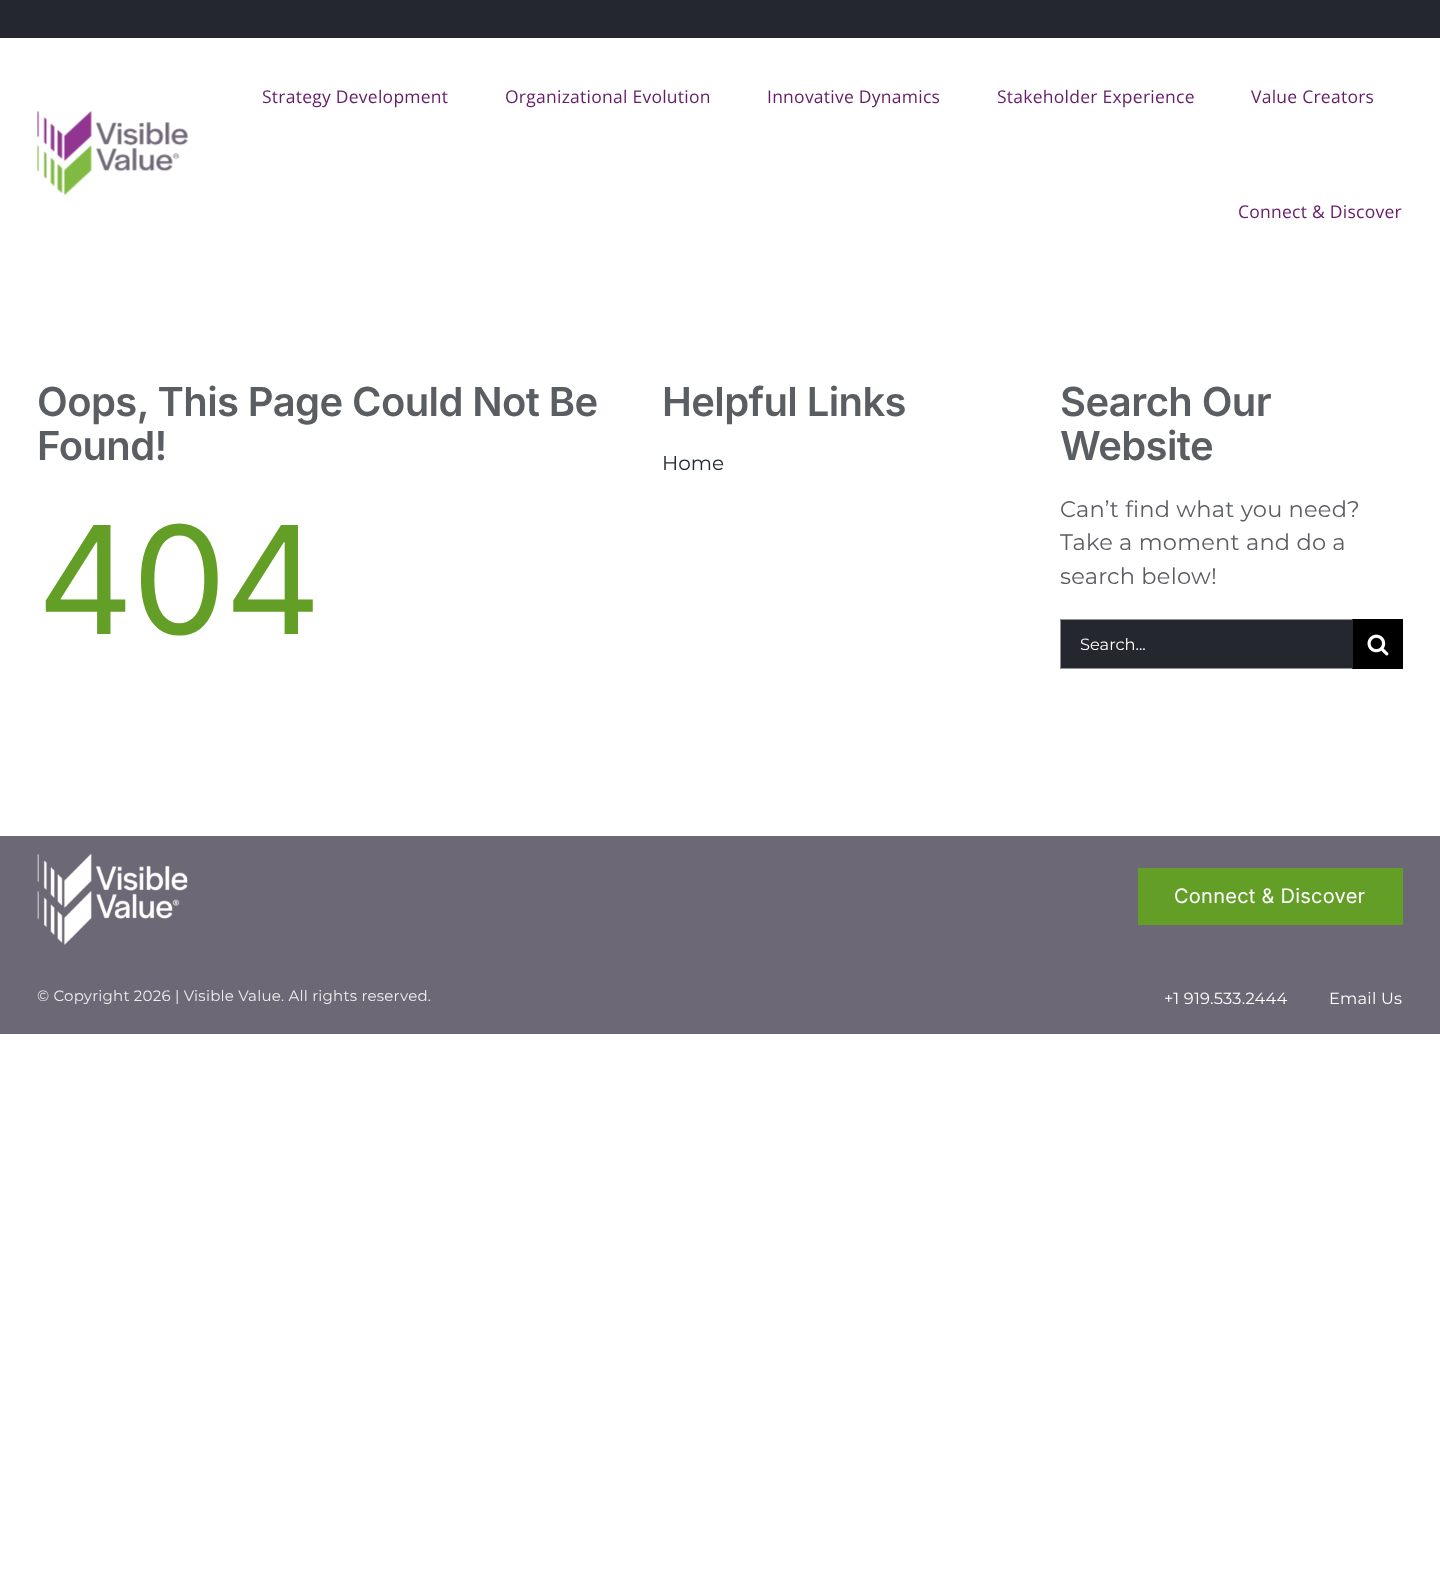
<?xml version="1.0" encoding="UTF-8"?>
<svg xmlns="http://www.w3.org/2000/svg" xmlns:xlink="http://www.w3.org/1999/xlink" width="1440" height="1583">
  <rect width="100%" height="100%" fill="#ffffff" />
  <rect width="1440" height="38" fill="#24272d" />
  <image x="37" y="111" width="151" height="84" xlink:href="image1.png" />
  <rect x="1060" y="619" width="293" height="50" fill="#24272d" />
  <path d="M 1060 619 h 292 v 1 h -291 z" fill="#929396" />
  <path d="M 1352 669 h -292 l 1 -1 h 291 z" fill="#929396" />
  <path d="M 1060 669 v -50 l 1 1 v 48 z" fill="#ffffff" fill-opacity="0.5" />
  <rect x="1353" y="619" width="50" height="50" fill="#000000" />
  <image x="1367" y="634" width="22" height="22" xlink:href="image2.png" />
  <rect y="836" width="1440" height="198" fill="#6d6876" />
  <image x="37" y="854" width="151" height="91" xlink:href="image3.png" />
  <rect x="1138" y="868" width="265" height="57" fill="#639e26" />
  <text x="262" y="103" style="font-family: Open Sans; font-size: 17.5px; letter-spacing: 0.25px; fill: #661d69">Strategy Development</text>
  <text x="505" y="103" style="font-family: Open Sans; font-size: 17.5px; letter-spacing: 0.25px; fill: #661d69">Organizational Evolution</text>
  <text x="767" y="103" style="font-family: Open Sans; font-size: 17.5px; letter-spacing: 0.25px; fill: #661d69">Innovative Dynamics</text>
  <text x="997" y="103" style="font-family: Open Sans; font-size: 17.5px; letter-spacing: 0.25px; fill: #661d69">Stakeholder Experience</text>
  <text x="1251" y="103" style="font-family: Open Sans; font-size: 17.5px; letter-spacing: 0.25px; fill: #661d69">Value Creators</text>
  <text x="1238" y="218" style="font-family: Open Sans; font-size: 17.5px; letter-spacing: 0.25px; fill: #661d69">Connect &amp; Discover</text>
  <text x="37" y="416" style="font-family: Inter; font-size: 40px; font-weight: 600; letter-spacing: -0.6px; fill: #5a5d62">Oops, This Page Could Not Be</text>
  <text x="37" y="460" style="font-family: Inter; font-size: 40px; font-weight: 600; letter-spacing: -0.6px; fill: #5a5d62">Found!</text>
  <text x="37" y="634" style="font-family: Inter; font-size: 150px; letter-spacing: -2px; fill: #639e26">404</text>
  <text x="662" y="416" style="font-family: Inter; font-size: 40px; font-weight: 600; letter-spacing: -0.6px; fill: #5a5d62">Helpful Links</text>
  <text x="662" y="470" style="font-family: Montserrat; font-size: 20px; fill: #212934">Home</text>
  <text x="1060" y="416" style="font-family: Inter; font-size: 40px; font-weight: 600; letter-spacing: -0.6px; fill: #5a5d62">Search Our</text>
  <text x="1060" y="460" style="font-family: Inter; font-size: 40px; font-weight: 600; letter-spacing: -0.6px; fill: #5a5d62">Website</text>
  <text x="1060" y="517" style="font-family: Montserrat; font-size: 22.5px; letter-spacing: 0.22px; fill: #5a5d62">Can’t find what you need?</text>
  <text x="1060" y="550" style="font-family: Montserrat; font-size: 22.5px; letter-spacing: 0.22px; fill: #5a5d62">Take a moment and do a</text>
  <text x="1060" y="584" style="font-family: Montserrat; font-size: 22.5px; letter-spacing: 0.22px; fill: #5a5d62">search below!</text>
  <text x="1080" y="650" style="font-family: Montserrat; font-size: 16.25px; fill: #ffffff">Search...</text>
  <text x="1174" y="903" style="font-family: Inter; font-size: 20px; letter-spacing: 0.25px; fill: #ffffff">Connect &amp; Discover</text>
  <text x="37" y="1001" style="font-family: Montserrat; font-size: 15px; letter-spacing: 0.22px; fill: #ededed">© Copyright 2026 | Visible Value. All rights reserved.</text>
  <text x="1164" y="1004" style="font-family: Montserrat; font-size: 16.25px; letter-spacing: 0.22px; fill: #ffffff">+1 919.533.2444</text>
  <text x="1329" y="1004" style="font-family: Montserrat; font-size: 16.25px; letter-spacing: 0.22px; fill: #ffffff">Email Us</text>
</svg>
